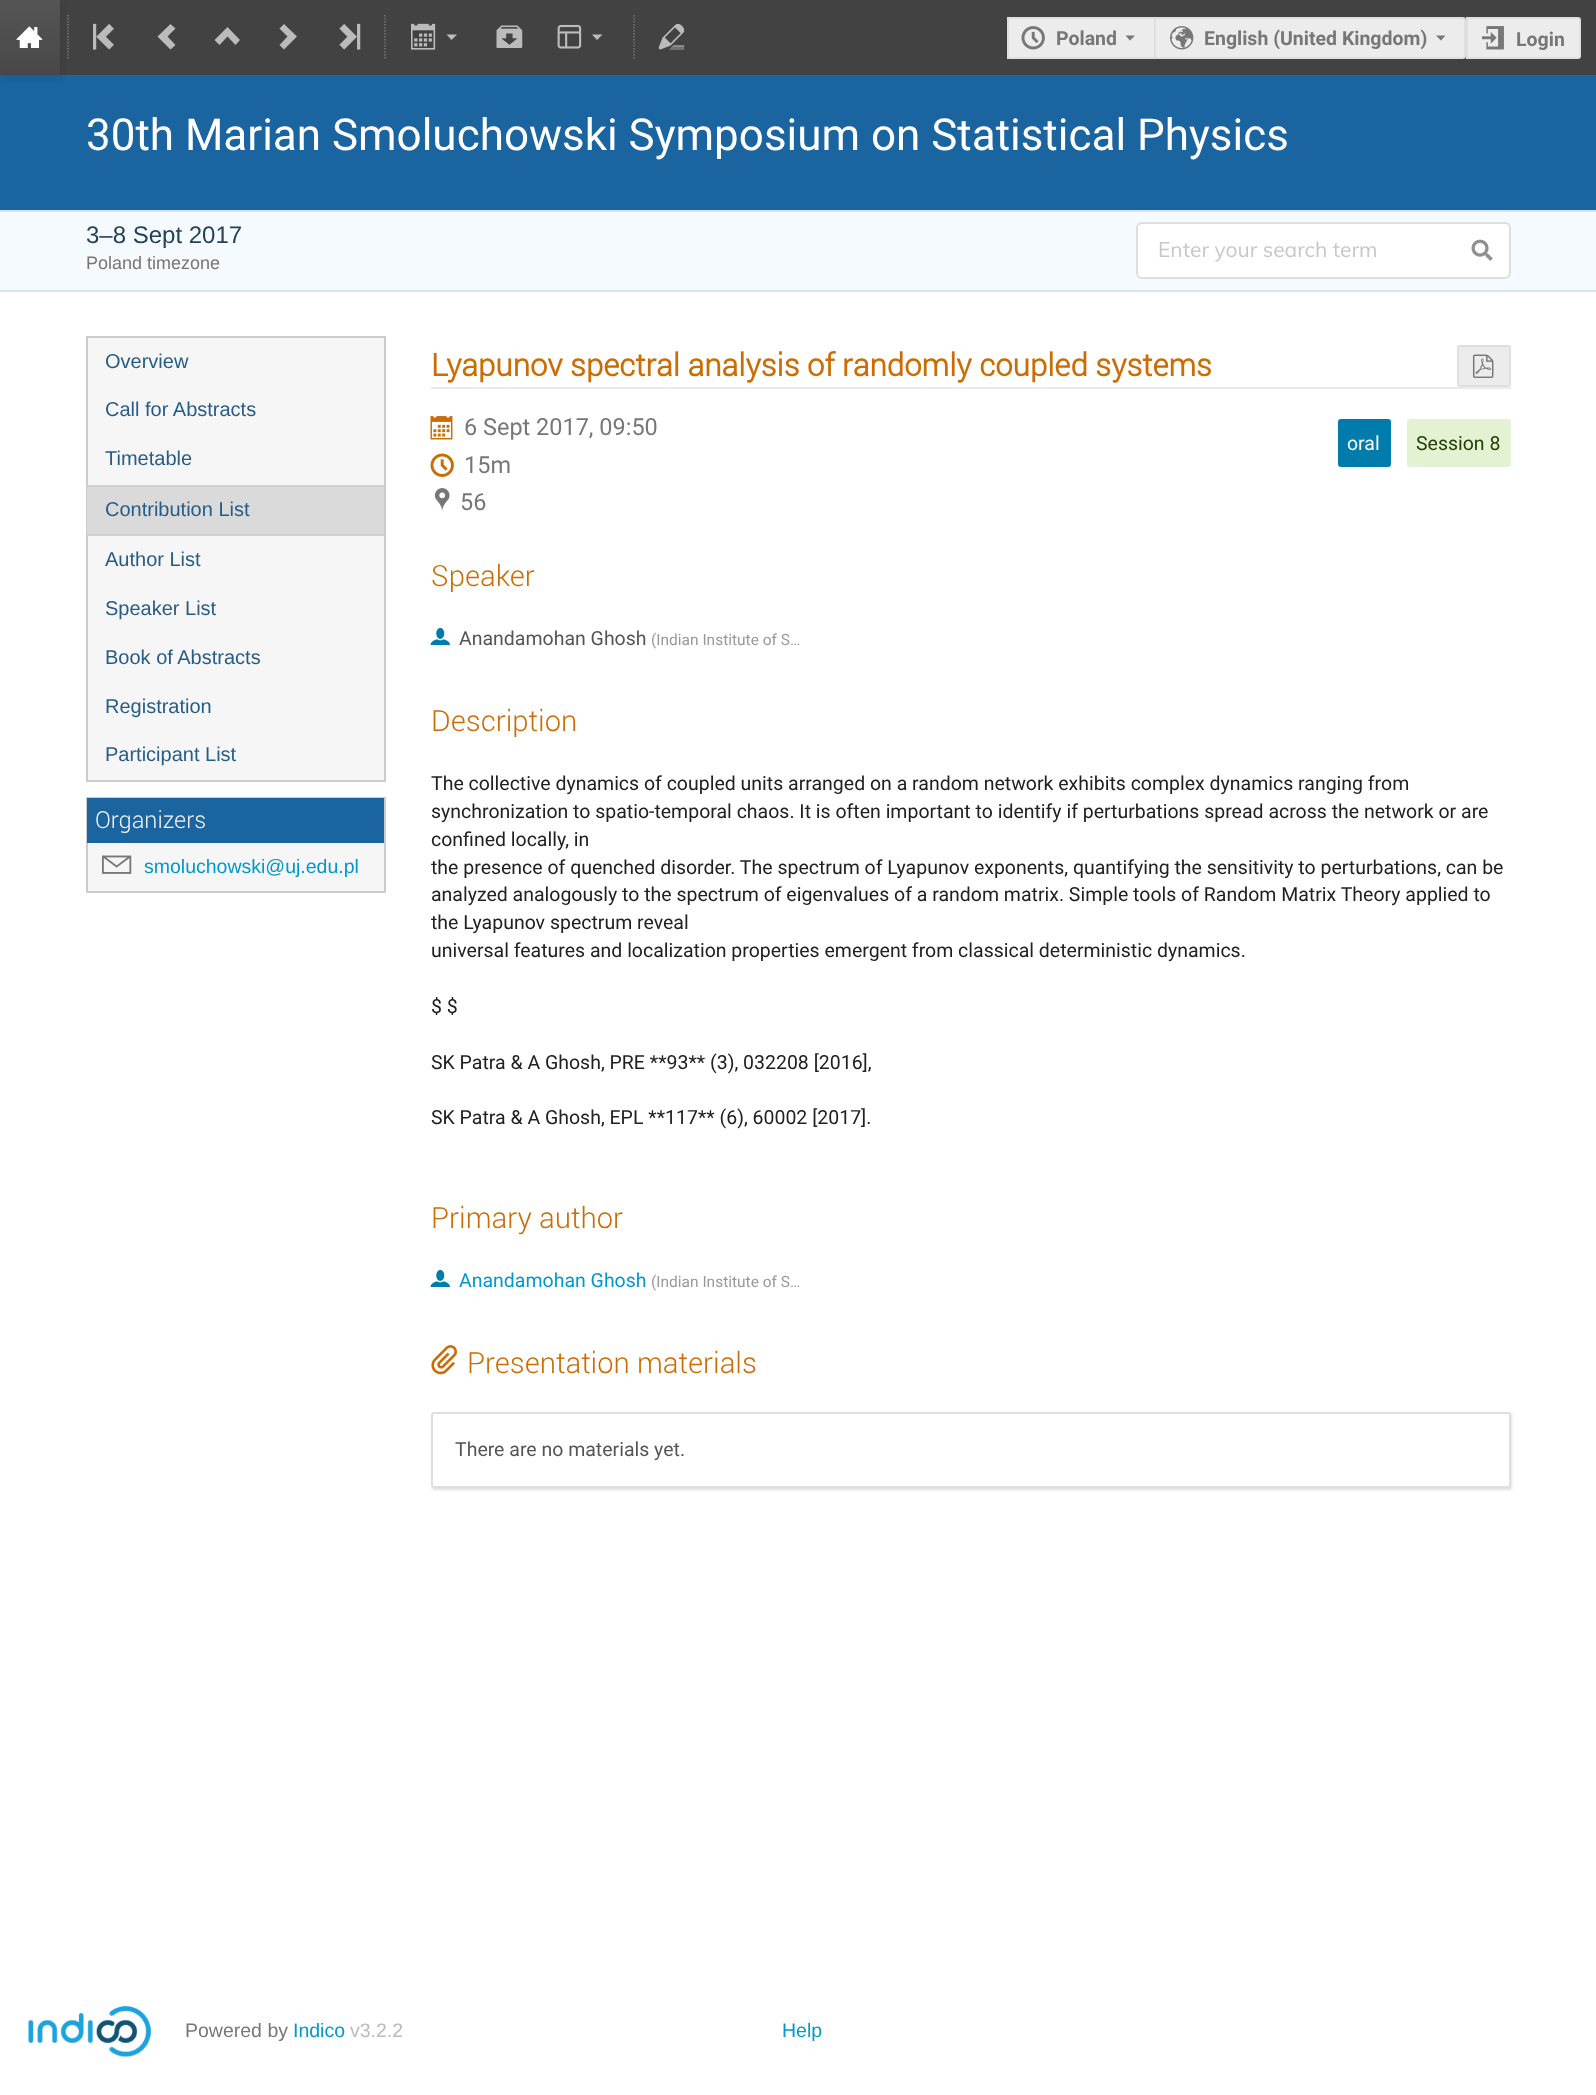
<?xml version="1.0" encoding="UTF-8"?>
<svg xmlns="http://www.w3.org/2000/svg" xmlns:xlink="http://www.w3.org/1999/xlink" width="1596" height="2095">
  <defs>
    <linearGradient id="g1" gradientUnits="userSpaceOnUse" x1="30" y1="0" x2="30" y2="75"><stop offset="0" stop-color="#555555" /><stop offset="1" stop-color="#484848" /></linearGradient>
  </defs>
  <rect width="100%" height="100%" fill="#ffffff" />
  <rect x="60" width="1536" height="75" fill="#424242" />
  <rect y="75" width="1596" height="135" fill="#1a64a0" />
  <rect x="2" y="2" width="60" height="75" fill="#141414" fill-opacity="0.1" filter="blur(3px)" />
  <rect width="60" height="75" fill="url(#g1)" />
  <image x="16" y="26" width="27" height="22" xlink:href="image1.png" />
  <path d="M 68 15 v 45" fill="none" stroke="#777777" stroke-width="1.5" stroke-dasharray="1.5 1.5" />
  <image x="93" y="23" width="21" height="27" xlink:href="image2.png" />
  <path d="M 170.5 49.5 l 5 -4.5 l -8 -8.5 l 8 -8 l -5 -4.5 l -13 12.5 z" fill="#bbbbbb" />
  <path d="M 214.5 40 l 5 5 l 8 -8.5 l 8 8.5 l 4.5 -5 l -12.5 -13 z" fill="#bbbbbb" />
  <path d="M 284 24 l -4.5 4.5 l 8 8 l -8 8.5 l 4.5 4.5 l 13 -13 z" fill="#bbbbbb" />
  <image x="339" y="23" width="22" height="27" xlink:href="image3.png" />
  <path d="M 385 15 v 45" fill="none" stroke="#777777" stroke-width="1.5" stroke-dasharray="1.5 1.5" />
  <image x="411" y="23" width="25" height="27" xlink:href="image4.png" />
  <path d="M 446.5 34.5 l 5 5.5 l 5.5 -5.5 z" fill="#bbbbbb" />
  <image x="496" y="25" width="27" height="23" xlink:href="image5.png" />
  <image x="557" y="24" width="25" height="25" xlink:href="image6.png" />
  <path d="M 592 34.5 l 5 5.5 l 5.5 -5.5 z" fill="#bbbbbb" />
  <path d="M 634 15 v 45" fill="none" stroke="#777777" stroke-width="1.5" stroke-dasharray="1.5 1.5" />
  <image x="658" y="23" width="27" height="27" xlink:href="image7.png" />
  <rect x="1009" y="19" width="145" height="38" fill="#ececec" />
  <rect x="1007" y="17" width="147" height="2" fill="#dfdfdf" />
  <rect x="1007" y="57" width="147" height="2" fill="#dfdfdf" />
  <rect x="1007" y="17" width="2" height="42" fill="#dfdfdf" />
  <image x="1021" y="26" width="24" height="24" xlink:href="image8.png" />
  <path d="M 1125.5 35.5 l 4.5 5 l 5 -5 z" fill="#777777" />
  <path d="M 1155 18 h 308 c 1 0 2 1 2 2 v 36 c 0 1 -1 2 -2 2 h -308 z" fill="#ececec" stroke="#dfdfdf" stroke-width="2" />
  <image x="1170" y="26" width="24" height="24" xlink:href="image9.png" />
  <path d="M 1436 35.5 l 5 5 l 4.5 -5 z" fill="#777777" />
  <path d="M 1467 18 h 111 c 1 0 2 1 2 2 v 36 c 0 1 -1 2 -2 2 h -111 z" fill="#ececec" stroke="#dfdfdf" stroke-width="2" />
  <image x="1482" y="26" width="22" height="24" xlink:href="image10.png" />
  <rect y="212" width="1596" height="78" fill="#f5faff" />
  <rect y="210" width="1596" height="2" fill="#d5e4f1" />
  <rect y="290" width="1596" height="2" fill="#d5e4f1" />
  <rect x="1137" y="223" width="373" height="55" rx="5" fill="#ffffff" stroke="#dedede" stroke-width="2" />
  <image x="1471" y="239" width="22" height="22" xlink:href="image11.png" />
  <rect x="87" y="337" width="298" height="444" fill="#f6f6f6" stroke="#cccccc" stroke-width="2" />
  <rect x="87" y="487" width="297" height="47" fill="#dadada" />
  <rect x="87" y="485" width="297" height="2" fill="#d0d0d0" />
  <rect x="87" y="534" width="297" height="2" fill="#d0d0d0" />
  <rect x="88" y="843" width="296" height="48" fill="#f6f6f6" />
  <rect x="87" y="798" width="298" height="94" fill="none" stroke="#cccccc" stroke-width="2" />
  <rect x="87" y="798" width="297" height="45" fill="#1a64a0" />
  <image x="102" y="855" width="30" height="19" xlink:href="image12.png" />
  <rect x="431" y="387" width="1080" height="2" fill="#ebebeb" />
  <rect x="1458" y="346" width="52" height="40" rx="2" fill="#ececec" stroke="#dfdfdf" stroke-width="2" />
  <image x="1472" y="354" width="22" height="24" xlink:href="image13.png" />
  <image x="430" y="416" width="23" height="24" xlink:href="image14.png" />
  <image x="430" y="453" width="24" height="24" xlink:href="image15.png" />
  <image x="434" y="488" width="16" height="23" xlink:href="image16.png" />
  <rect x="1338" y="419" width="53" height="48" rx="3" fill="#007cac" />
  <rect x="1407" y="419" width="104" height="48" rx="3" fill="#e3f2d3" />
  <image x="430" y="627" width="20" height="18" xlink:href="image17.png" />
  <image x="430" y="1269" width="20" height="18" xlink:href="image17.png" />
  <image x="431" y="1345" width="26" height="30" xlink:href="image18.png" />
  <rect x="432" y="1413" width="1080" height="77" rx="3" fill="#e1e1e1" filter="blur(1px)" />
  <rect x="432" y="1413" width="1078" height="74" rx="2" fill="#ffffff" stroke="#dfdfdf" stroke-width="2" />
  <image x="28" y="2006" width="123" height="51" xlink:href="image19.png" />
  <text x="1056" y="45" style="font-family: Roboto; font-size: 19.5px; font-weight: bold; fill: #777777">Poland</text>
  <text x="1204" y="45" style="font-family: Roboto; font-size: 19.5px; font-weight: bold; fill: #777777">English (United Kingdom)</text>
  <text x="1516" y="46" style="font-family: Roboto; font-size: 19.5px; font-weight: bold; fill: #777777">Login</text>
  <text x="86" y="150" style="font-family: Roboto; font-size: 44px; fill: #ffffff">30th Marian Smoluchowski Symposium on Statistical Physics</text>
  <text x="86" y="243" style="font-family: Liberation Sans; font-size: 24px; fill: #24425a">3–8 Sept 2017</text>
  <text x="86" y="269" style="font-family: Liberation Sans; font-size: 18px; fill: #777777">Poland timezone</text>
  <text x="1158" y="257" style="font-family: Mulish; font-size: 21px; fill: #c7c7c7">Enter your search term</text>
  <text x="105" y="368" style="font-family: 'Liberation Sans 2'; font-size: 20px; fill: #275c86">Overview</text>
  <text x="105" y="416" style="font-family: 'Liberation Sans 2'; font-size: 20px; fill: #275c86">Call for Abstracts</text>
  <text x="105" y="465" style="font-family: 'Liberation Sans 2'; font-size: 20px; fill: #275c86">Timetable</text>
  <text x="105" y="516" style="font-family: 'Liberation Sans 2'; font-size: 20px; fill: #275c86">Contribution List</text>
  <text x="105" y="566" style="font-family: 'Liberation Sans 2'; font-size: 20px; fill: #275c86">Author List</text>
  <text x="105" y="615" style="font-family: 'Liberation Sans 2'; font-size: 20px; fill: #275c86">Speaker List</text>
  <text x="105" y="664" style="font-family: 'Liberation Sans 2'; font-size: 20px; fill: #275c86">Book of Abstracts</text>
  <text x="105" y="713" style="font-family: 'Liberation Sans 2'; font-size: 20px; fill: #275c86">Registration</text>
  <text x="105" y="761" style="font-family: 'Liberation Sans 2'; font-size: 20px; fill: #275c86">Participant List</text>
  <text x="95" y="828" style="font-family: Roboto; font-size: 23.5px; font-weight: 300; fill: #f3f3f3">Organizers</text>
  <text x="144" y="873" style="font-family: Liberation Sans; font-size: 19.5px; fill: #0099cc">smoluchowski@uj.edu.pl</text>
  <text x="431" y="376" style="font-family: 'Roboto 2'; font-size: 31.2px; font-weight: bold; fill: #cb6d04">Lyapunov spectral analysis of randomly coupled systems</text>
  <text x="464" y="435" style="font-family: Roboto; font-size: 23.5px; fill: #777777">6 Sept 2017, 09:50</text>
  <text x="464" y="473" style="font-family: Roboto; font-size: 23.5px; fill: #777777">15m</text>
  <text x="460" y="510" style="font-family: Roboto; font-size: 23.5px; fill: #777777">56</text>
  <text x="1347" y="450" style="font-family: Roboto; font-size: 19.5px; fill: #f9f9f9">oral</text>
  <text x="1416" y="450" style="font-family: Roboto; font-size: 19.5px; fill: #253f08">Session 8</text>
  <text x="431" y="586" style="font-family: Roboto; font-size: 29.25px; font-weight: 300; fill: #cb6d04">Speaker</text>
  <text x="459" y="645" style="font-family: Roboto; font-size: 19.5px; fill: #555555">Anandamohan Ghosh</text>
  <text x="651" y="645" style="font-family: Roboto; font-size: 15.5px; fill: #999999">(Indian Institute of S…</text>
  <text x="431" y="731" style="font-family: Roboto; font-size: 29.25px; font-weight: 300; fill: #cb6d04">Description</text>
  <text x="431" y="790" style="font-family: Roboto; font-size: 19.5px; fill: #212121">The collective dynamics of coupled units arranged on a random network exhibits complex dynamics ranging from</text>
  <text x="431" y="818" style="font-family: Roboto; font-size: 19.5px; fill: #212121">synchronization to spatio-temporal chaos. It is often important to identify if perturbations spread across the network or are</text>
  <text x="431" y="846" style="font-family: Roboto; font-size: 19.5px; fill: #212121">confined locally, in</text>
  <text x="431" y="874" style="font-family: Roboto; font-size: 19.5px; fill: #212121">the presence of quenched disorder. The spectrum of Lyapunov exponents, quantifying the sensitivity to perturbations, can be</text>
  <text x="431" y="901" style="font-family: Roboto; font-size: 19.5px; fill: #212121">analyzed analogously to the spectrum of eigenvalues of a random matrix. Simple tools of Random Matrix Theory applied to</text>
  <text x="431" y="929" style="font-family: Roboto; font-size: 19.5px; fill: #212121">the Lyapunov spectrum reveal</text>
  <text x="431" y="957" style="font-family: Roboto; font-size: 19.5px; fill: #212121">universal features and localization properties emergent from classical deterministic dynamics.</text>
  <text x="431" y="1013" style="font-family: Roboto; font-size: 19.5px; fill: #212121">$ $</text>
  <text x="431" y="1069" style="font-family: Roboto; font-size: 19.5px; fill: #212121">SK Patra &amp; A Ghosh, PRE **93** (3), 032208 [2016],</text>
  <text x="431" y="1124" style="font-family: Roboto; font-size: 19.5px; fill: #212121">SK Patra &amp; A Ghosh, EPL **117** (6), 60002 [2017].</text>
  <text x="431" y="1228" style="font-family: Roboto; font-size: 29.25px; font-weight: 300; fill: #cb6d04">Primary author</text>
  <text x="459" y="1287" style="font-family: Roboto; font-size: 19.5px; fill: #0099cc">Anandamohan Ghosh</text>
  <text x="651" y="1287" style="font-family: Roboto; font-size: 15.5px; fill: #999999">(Indian Institute of S…</text>
  <text x="467" y="1373" style="font-family: Roboto; font-size: 29.25px; font-weight: 300; fill: #cb6d04">Presentation materials</text>
  <text x="455" y="1456" style="font-family: Roboto; font-size: 19.5px; fill: #555555">There are no materials yet.</text>
  <text x="185" y="2037" style="font-family: Liberation Sans; font-size: 19.5px; fill: #777777">Powered by</text>
  <text x="293" y="2037" style="font-family: Liberation Sans; font-size: 19.5px; fill: #0099cc">Indico</text>
  <text x="350" y="2037" style="font-family: Liberation Sans; font-size: 19.5px; fill: #bbbbbb">v3.2.2</text>
  <text x="782" y="2037" style="font-family: Liberation Sans; font-size: 19.5px; fill: #0099cc">Help</text>
</svg>
